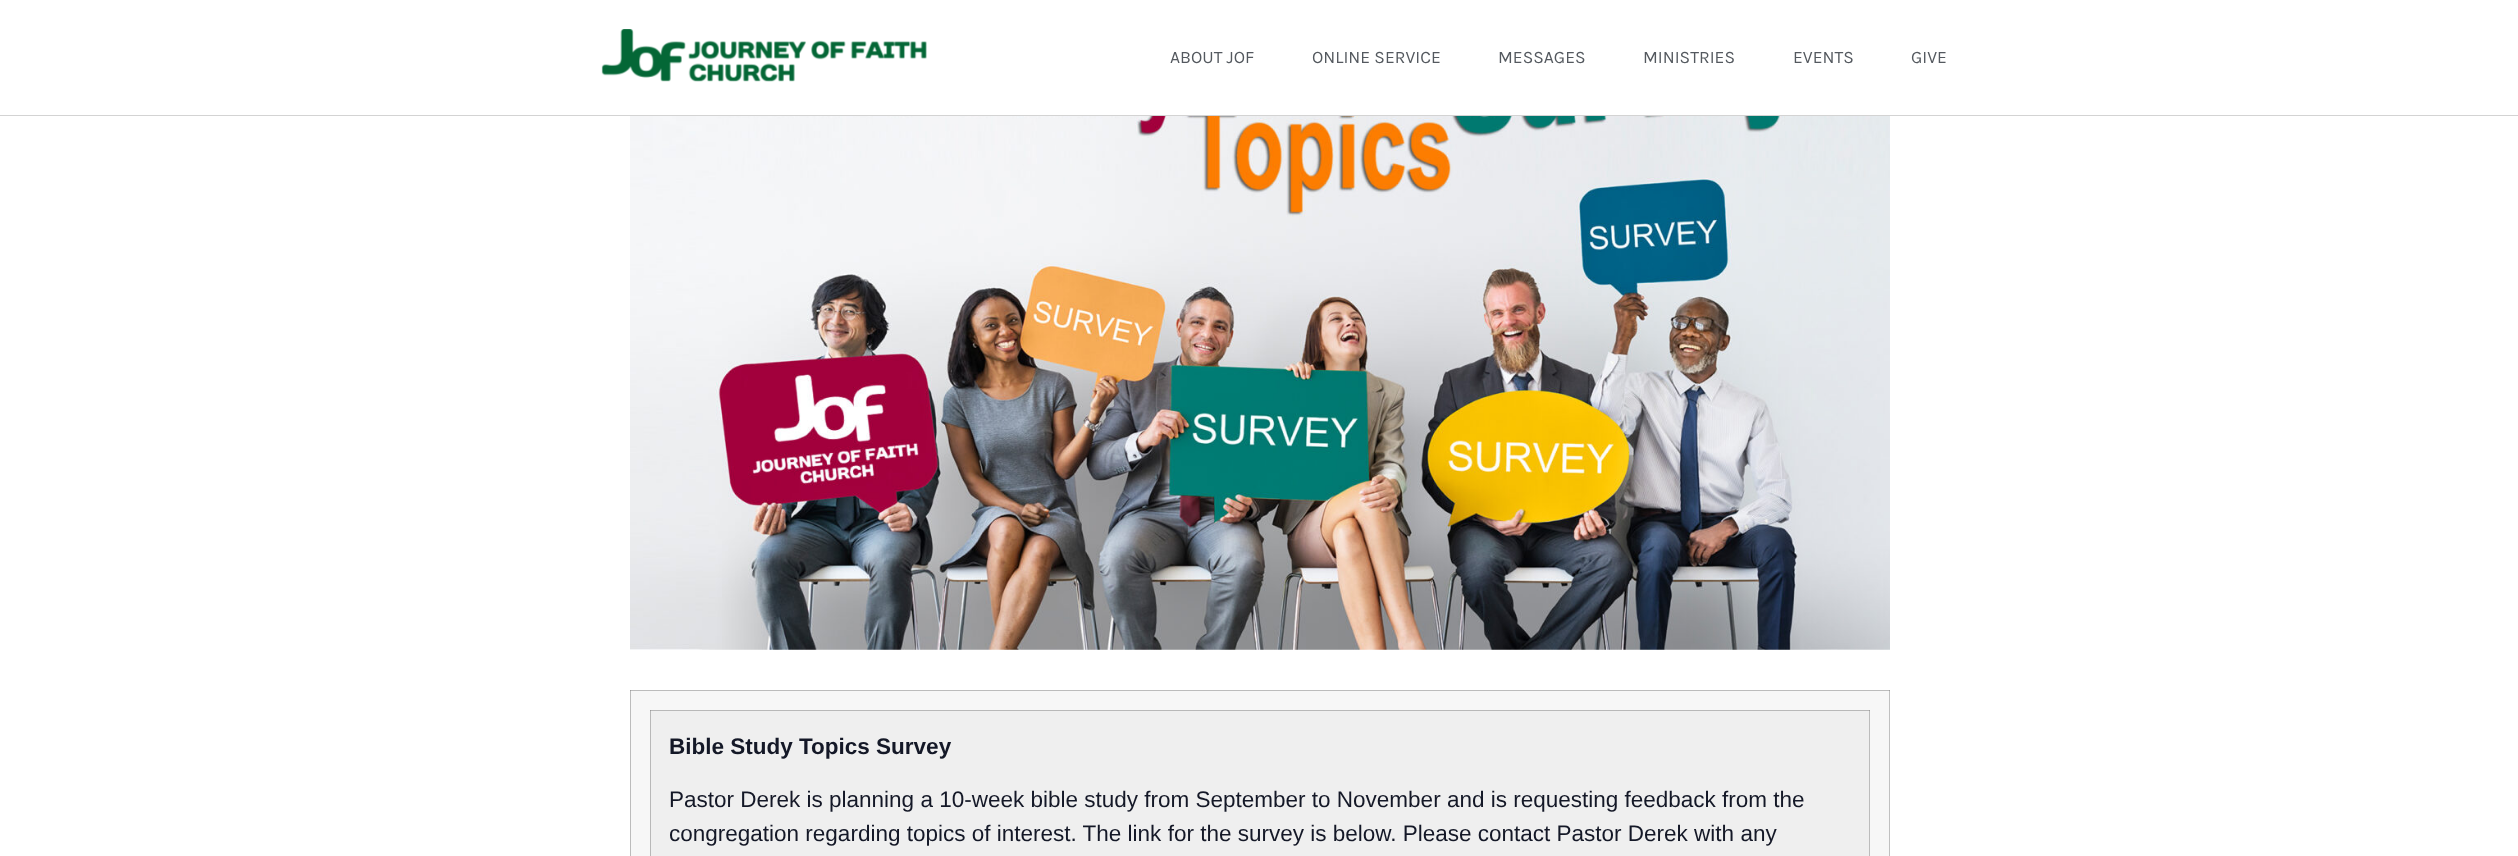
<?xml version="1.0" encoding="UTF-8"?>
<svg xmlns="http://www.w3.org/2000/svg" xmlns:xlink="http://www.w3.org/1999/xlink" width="2518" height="856">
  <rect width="100%" height="100%" fill="#ffffff" />
  <rect x="1889" y="690" width="1" height="166" fill="#c0c0c0" />
  <rect x="1889" y="690" width="1" height="1" fill="#a0a0a0" />
  <rect y="115" width="2518" height="1" fill="#d3d3d3" />
  <image x="601" y="29" width="326" height="53" xlink:href="image1.png" />
  <image x="630" y="116" width="1260" height="534" xlink:href="image2.png" />
  <rect x="631" y="691" width="1258" height="165" fill="#f7f7f7" />
  <rect x="630" y="690" width="1" height="166" fill="#bcbcbc" />
  <rect x="630" y="690" width="1259" height="1" fill="#bcbcbc" />
  <rect x="630" y="690" width="1" height="1" fill="#9e9e9e" />
  <rect x="1869" y="710" width="1" height="146" fill="#bcbcbc" />
  <rect x="1869" y="710" width="1" height="1" fill="#9e9e9e" />
  <rect x="651" y="711" width="1218" height="145" fill="#efefef" />
  <rect x="650" y="710" width="1" height="146" fill="#b8b8b8" />
  <rect x="650" y="710" width="1219" height="1" fill="#b8b8b8" />
  <rect x="650" y="710" width="1" height="1" fill="#9c9c9c" />
  <text x="1170" y="63" style="font-family: Karla; font-size: 17.5px; fill: #54595f">ABOUT JOF</text>
  <text x="1312" y="63" style="font-family: Karla; font-size: 17.5px; fill: #54595f">ONLINE SERVICE</text>
  <text x="1498" y="63" style="font-family: Karla; font-size: 17.5px; fill: #54595f">MESSAGES</text>
  <text x="1643" y="63" style="font-family: Karla; font-size: 17.5px; fill: #54595f">MINISTRIES</text>
  <text x="1793" y="63" style="font-family: Karla; font-size: 17.5px; fill: #54595f">EVENTS</text>
  <text x="1911" y="63" style="font-family: Karla; font-size: 17.5px; fill: #54595f">GIVE</text>
  <text x="669" y="754" style="font-family: Liberation Sans; font-size: 22.5px; font-weight: bold; fill: #141827">Bible Study Topics Survey</text>
  <text x="669" y="807" style="font-family: Liberation Sans; font-size: 22.5px; fill: #141827">Pastor Derek is planning a 10-week bible study from September to November and is requesting feedback from the</text>
  <text x="669" y="841" style="font-family: Liberation Sans; font-size: 22.5px; fill: #141827">congregation regarding topics of interest. The link for the survey is below. Please contact Pastor Derek with any</text>
</svg>
